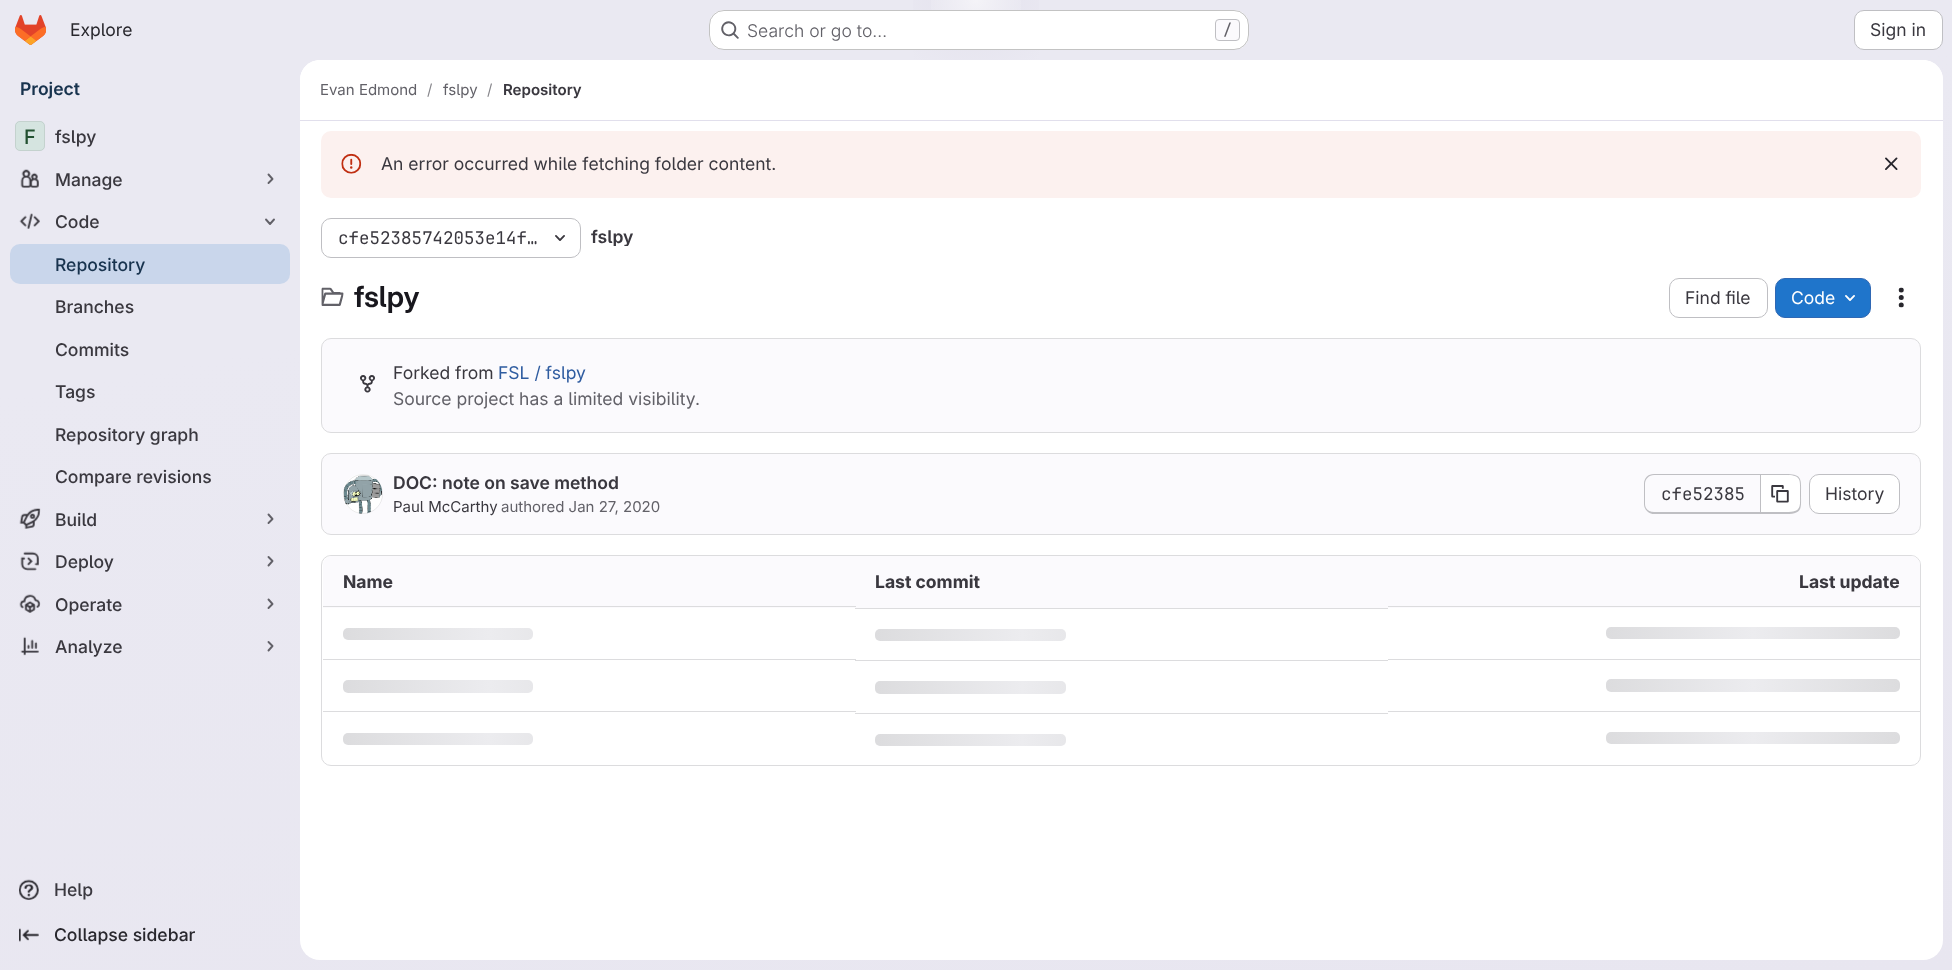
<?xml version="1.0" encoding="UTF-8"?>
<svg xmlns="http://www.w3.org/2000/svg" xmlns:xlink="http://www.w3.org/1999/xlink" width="1952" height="970">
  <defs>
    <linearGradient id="g1" gradientUnits="userSpaceOnUse" x1="1089" y1="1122" x2="864" y2="-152"><stop offset="0" stop-color="#e8e6f0" /><stop offset="0.7" stop-color="#eae9f2" /></linearGradient>
    <radialGradient id="g2" gradientUnits="userSpaceOnUse" cx="0" cy="0" r="1" gradientTransform="matrix(976 0 0 970 976 0)"><stop offset="0" stop-color="#e4e2ed" /><stop offset="0.09" stop-color="#e4e2ed" stop-opacity="0" /></radialGradient>
    <radialGradient id="g3" gradientUnits="userSpaceOnUse" cx="976" cy="0" r="1376"><stop offset="0" stop-color="#ffffff" stop-opacity="0.6" /><stop offset="0.04" stop-color="#ffffff" stop-opacity="0" /></radialGradient>
    <linearGradient id="g4" gradientUnits="userSpaceOnUse" x1="343" y1="628" x2="636" y2="628"><stop offset="0" stop-color="#dcdcde" /><stop offset="0.5" stop-color="#ececef" /><stop offset="1" stop-color="#dcdcde" /></linearGradient>
    <linearGradient id="g5" gradientUnits="userSpaceOnUse" x1="875" y1="629" x2="1169" y2="629"><stop offset="0" stop-color="#dcdcde" /><stop offset="0.5" stop-color="#ececef" /><stop offset="1" stop-color="#dcdcde" /></linearGradient>
    <linearGradient id="g6" gradientUnits="userSpaceOnUse" x1="1606" y1="627" x2="1900" y2="627"><stop offset="0" stop-color="#dcdcde" /><stop offset="0.5" stop-color="#ececef" /><stop offset="1" stop-color="#dcdcde" /></linearGradient>
    <linearGradient id="g7" gradientUnits="userSpaceOnUse" x1="343" y1="680" x2="636" y2="680"><stop offset="0" stop-color="#dcdcde" /><stop offset="0.5" stop-color="#ececef" /><stop offset="1" stop-color="#dcdcde" /></linearGradient>
    <linearGradient id="g8" gradientUnits="userSpaceOnUse" x1="875" y1="681" x2="1169" y2="681"><stop offset="0" stop-color="#dcdcde" /><stop offset="0.5" stop-color="#ececef" /><stop offset="1" stop-color="#dcdcde" /></linearGradient>
    <linearGradient id="g9" gradientUnits="userSpaceOnUse" x1="1606" y1="679" x2="1900" y2="679"><stop offset="0" stop-color="#dcdcde" /><stop offset="0.5" stop-color="#ececef" /><stop offset="1" stop-color="#dcdcde" /></linearGradient>
    <linearGradient id="g10" gradientUnits="userSpaceOnUse" x1="343" y1="733" x2="636" y2="733"><stop offset="0" stop-color="#dcdcde" /><stop offset="0.5" stop-color="#ececef" /><stop offset="1" stop-color="#dcdcde" /></linearGradient>
    <linearGradient id="g11" gradientUnits="userSpaceOnUse" x1="875" y1="734" x2="1169" y2="734"><stop offset="0" stop-color="#dcdcde" /><stop offset="0.5" stop-color="#ececef" /><stop offset="1" stop-color="#dcdcde" /></linearGradient>
    <linearGradient id="g12" gradientUnits="userSpaceOnUse" x1="1606" y1="732" x2="1900" y2="732"><stop offset="0" stop-color="#dcdcde" /><stop offset="0.5" stop-color="#ececef" /><stop offset="1" stop-color="#dcdcde" /></linearGradient>
    <clipPath id="clip1"><rect x="591" y="225" width="43" height="21" rx="5" /></clipPath>
  </defs>
  <rect width="100%" height="100%" fill="#ffffff" />
  <rect width="1952" height="970" fill="url(#g1)" />
  <rect x="913" width="126" height="60" fill="url(#g2)" />
  <rect x="931" width="90" height="46" fill="url(#g3)" />
  <image x="15" y="15" width="31" height="30" xlink:href="image1.png" />
  <rect x="709" y="10" width="540" height="40" rx="15" fill="#ffffff" />
  <rect x="709.5" y="10.5" width="539" height="39" rx="14.5" fill="none" stroke="#050506" stroke-opacity="0.24" />
  <image x="721" y="21" width="18" height="18" xlink:href="image2.png" />
  <rect x="1215.5" y="19.5" width="24" height="21" rx="3.5" fill="#fbfafd" stroke="#bfbfc3" />
  <rect x="1854.5" y="10.5" width="88" height="39" rx="9.5" fill="#ffffff" stroke="#bfbfc3" />
  <rect x="15" y="121" width="30" height="30" rx="5" fill="#d5e4e0" />
  <rect x="15.5" y="121.5" width="29" height="29" rx="4.5" fill="none" stroke="#050506" stroke-opacity="0.08" />
  <image x="20" y="169" width="19" height="19" xlink:href="image3.png" />
  <path d="M 268.5 174.5 l 4 4.5 l -4 4" fill="none" stroke="#626168" stroke-width="1.9" stroke-linecap="round" stroke-linejoin="round" />
  <image x="19" y="213" width="21" height="16" xlink:href="image4.png" />
  <path d="M 274 219.5 l -4 4.5 l -4 -4.5" fill="none" stroke="#626168" stroke-width="1.9" stroke-linecap="round" stroke-linejoin="round" />
  <rect x="10" y="244" width="280" height="40" rx="10" fill="#c9d6eb" />
  <image x="19" y="508" width="22" height="21" xlink:href="image5.png" />
  <path d="M 268.5 514.5 l 4 4.5 l -4 4" fill="none" stroke="#626168" stroke-width="1.9" stroke-linecap="round" stroke-linejoin="round" />
  <image x="20" y="551" width="19" height="20" xlink:href="image6.png" />
  <path d="M 268.5 557 l 4 4 l -4 4.5" fill="none" stroke="#626168" stroke-width="1.9" stroke-linecap="round" stroke-linejoin="round" />
  <image x="19" y="594" width="22" height="19" xlink:href="image7.png" />
  <path d="M 268.5 599.5 l 4 4.5 l -4 4" fill="none" stroke="#626168" stroke-width="1.9" stroke-linecap="round" stroke-linejoin="round" />
  <image x="20" y="636" width="19" height="20" xlink:href="image8.png" />
  <path d="M 268.5 642 l 4 4 l -4 4.5" fill="none" stroke="#626168" stroke-width="1.9" stroke-linecap="round" stroke-linejoin="round" />
  <image x="19" y="879" width="20" height="21" xlink:href="image9.png" />
  <image x="19" y="928" width="20" height="14" xlink:href="image10.png" />
  <rect x="300" y="60" width="1643" height="900" rx="20" fill="#ffffff" />
  <path d="M 320 60 h 1603 c 11 0 20 9 20 20 v 41 h -1643 v -41 c 0 -11 9 -20 20 -20 z" fill="#ffffff" />
  <rect x="300" y="120" width="1643" height="1" fill="#e1dfec" />
  <rect x="321" y="131" width="1600" height="67" rx="10" fill="#fcf1ef" />
  <image x="341" y="153" width="21" height="21" xlink:href="image11.png" />
  <image x="1885" y="157" width="13" height="13" xlink:href="image12.png" />
  <rect x="321.5" y="218.5" width="259" height="39" rx="9.5" fill="none" stroke="#bfbfc3" />
  <image x="555" y="235" width="10" height="6" xlink:href="image13.png" />
  <image x="321" y="287" width="23" height="19" xlink:href="image14.png" />
  <rect x="1669.5" y="278.5" width="98" height="39" rx="9.5" fill="none" stroke="#bfbfc3" />
  <rect x="1775.5" y="278.5" width="95" height="39" rx="9.5" fill="#1f75cb" stroke="#2f68b4" />
  <image x="1845" y="295" width="10" height="6" xlink:href="image15.png" />
  <image x="1898" y="287" width="6" height="21" xlink:href="image16.png" />
  <rect x="321.5" y="338.5" width="1599" height="94" rx="9.5" fill="#fbfafd" stroke="#dcdcde" />
  <image x="360" y="375" width="15" height="18" xlink:href="image17.png" />
  <rect x="321.5" y="453.5" width="1599" height="81" rx="9.5" fill="#fbfafd" stroke="#dcdcde" />
  <image x="343" y="474" width="39" height="40" xlink:href="image18.png" />
  <circle cx="363" cy="494" r="19.5" fill="none" stroke="#050506" stroke-opacity="0.08" />
  <path d="M 1654 474 h 106 v 40 h -106 c -6 0 -10 -5 -10 -10 v -20 c 0 -6 4 -10 10 -10 z m 0 1 h 106 v 37 h -106 c -5 0 -9 -3 -9 -8 v -20 c 0 -5 4 -9 9 -9 z" fill="#bfbfc3" fill-rule="evenodd" />
  <path d="M 1761 475 h 30 c 5 0 9 4 9 9 v 20 c 0 5 -4 9 -9 9 h -30 z" fill="#ffffff" />
  <path d="M 1761 474 h 25 c 17 0 15 6 15 20 c 0 14 2 20 -15 20 h -25 z m 0 1 h 25 c 16 0 14 5 14 19 c 0 13 2 18 -14 18 h -25 z" fill="#bfbfc3" fill-rule="evenodd" />
  <rect x="1760" y="474" width="1" height="40" fill="#bfbfc3" />
  <image x="1771" y="485" width="18" height="18" xlink:href="image19.png" />
  <rect x="1809.5" y="474.5" width="90" height="39" rx="9.5" fill="#ffffff" stroke="#bfbfc3" />
  <rect x="321.5" y="555.5" width="1599" height="210" rx="9.5" fill="none" stroke="#dcdcde" />
  <path d="M 332 556 h 523 v 52 h -532 v -43 c 0 -5 4 -9 9 -9 z" fill="#fbfafd" />
  <rect x="855" y="556" width="533" height="52" fill="#fbfafd" />
  <path d="M 1388 556 h 523 c 5 0 9 4 9 9 v 43 h -532 z" fill="#fbfafd" />
  <rect x="323" y="606" width="533" height="1" fill="#dcdcde" />
  <rect x="343" y="628" width="190" height="12" rx="5" fill="url(#g4)" />
  <rect x="855" y="608" width="533" height="1" fill="#dcdcde" />
  <rect x="875" y="629" width="191" height="12" rx="5" fill="url(#g5)" />
  <rect x="1388" y="606" width="532" height="1" fill="#dcdcde" />
  <rect x="1606" y="627" width="294" height="12" rx="5" fill="url(#g6)" />
  <rect x="323" y="659" width="533" height="1" fill="#dcdcde" />
  <rect x="343" y="680" width="190" height="13" rx="5" fill="url(#g7)" />
  <rect x="855" y="660" width="533" height="1" fill="#dcdcde" />
  <rect x="875" y="681" width="191" height="13" rx="5" fill="url(#g8)" />
  <rect x="1388" y="659" width="532" height="1" fill="#dcdcde" />
  <rect x="1606" y="679" width="294" height="13" rx="5" fill="url(#g9)" />
  <rect x="323" y="711" width="533" height="1" fill="#dcdcde" />
  <rect x="343" y="733" width="190" height="12" rx="5" fill="url(#g10)" />
  <rect x="855" y="713" width="533" height="1" fill="#dcdcde" />
  <rect x="875" y="734" width="191" height="12" rx="5" fill="url(#g11)" />
  <rect x="1388" y="711" width="532" height="1" fill="#dcdcde" />
  <rect x="1606" y="732" width="294" height="12" rx="5" fill="url(#g12)" />
  <text x="70" y="36" style="font-family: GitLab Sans; font-size: 17.5px; fill: #28272d">Explore</text>
  <text x="747" y="37" style="font-family: GitLab Sans; font-size: 17.5px; font-weight: 300; fill: #626168">Search or go to…</text>
  <text x="1223" y="35" style="font-family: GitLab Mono; font-size: 15px; font-weight: 500; fill: #626168">/</text>
  <text x="1870" y="36" style="font-family: GitLab Sans; font-size: 17.5px; fill: #3a383f">Sign in</text>
  <text x="20" y="95" style="font-family: 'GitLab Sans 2'; font-size: 17.5px; font-weight: 600; fill: #18334e">Project</text>
  <text x="24" y="144" style="font-family: 'GitLab Sans 2'; font-size: 20px; font-weight: 500; fill: #225131">F</text>
  <text x="55" y="143" style="font-family: GitLab Sans; font-size: 17.5px; font-weight: 500; fill: #3a383f">fslpy</text>
  <text x="55" y="186" style="font-family: GitLab Sans; font-size: 17.5px; font-weight: 500; fill: #3a383f">Manage</text>
  <text x="55" y="228" style="font-family: GitLab Sans; font-size: 17.5px; font-weight: 500; fill: #3a383f">Code</text>
  <text x="55" y="271" style="font-family: GitLab Sans; font-size: 17.5px; font-weight: 500; fill: #18334e">Repository</text>
  <text x="55" y="313" style="font-family: GitLab Sans; font-size: 17.5px; font-weight: 500; fill: #3a383f">Branches</text>
  <text x="55" y="356" style="font-family: GitLab Sans; font-size: 17.5px; font-weight: 500; fill: #3a383f">Commits</text>
  <text x="55" y="398" style="font-family: GitLab Sans; font-size: 17.5px; font-weight: 500; fill: #3a383f">Tags</text>
  <text x="55" y="441" style="font-family: GitLab Sans; font-size: 17.5px; font-weight: 500; fill: #3a383f">Repository graph</text>
  <text x="55" y="483" style="font-family: GitLab Sans; font-size: 17.5px; font-weight: 500; fill: #3a383f">Compare revisions</text>
  <text x="55" y="526" style="font-family: GitLab Sans; font-size: 17.5px; font-weight: 500; fill: #3a383f">Build</text>
  <text x="55" y="568" style="font-family: GitLab Sans; font-size: 17.5px; font-weight: 500; fill: #3a383f">Deploy</text>
  <text x="55" y="611" style="font-family: GitLab Sans; font-size: 17.5px; font-weight: 500; fill: #3a383f">Operate</text>
  <text x="55" y="653" style="font-family: GitLab Sans; font-size: 17.5px; font-weight: 500; fill: #3a383f">Analyze</text>
  <text x="54" y="896" style="font-family: GitLab Sans; font-size: 17.5px; font-weight: 500; fill: #3a383f">Help</text>
  <text x="54" y="941" style="font-family: GitLab Sans; font-size: 17.5px; font-weight: 500; fill: #28272d">Collapse sidebar</text>
  <text x="320" y="95" style="font-family: GitLab Sans; font-size: 15px; fill: #626168">Evan Edmond</text>
  <text x="427" y="95" style="font-family: GitLab Sans; font-size: 15px; fill: #89888d">/</text>
  <text x="443" y="95" style="font-family: GitLab Sans; font-size: 15px; fill: #626168">fslpy</text>
  <text x="487" y="95" style="font-family: GitLab Sans; font-size: 15px; fill: #89888d">/</text>
  <text x="503" y="95" style="font-family: 'GitLab Sans 2'; font-size: 15px; font-weight: 600; fill: #3a383f">Repository</text>
  <text x="381" y="170" style="font-family: GitLab Sans; font-size: 17.5px; fill: #3a383f">An error occurred while fetching folder content.</text>
  <text x="338" y="244" style="font-family: GitLab Mono; font-size: 17.5px; fill: #3a383f">cfe52385742053e14f…</text>
  <g clip-path="url(#clip1)">
    <text x="591" y="243" style="font-family: 'GitLab Sans 2'; font-size: 17.5px; font-weight: 600; fill: #3a383f">fslpy</text>
  </g>
  <text x="354" y="307" style="font-family: GitLab Sans; font-size: 29px; font-weight: 600; fill: #18171d">fslpy</text>
  <text x="1685" y="304" style="font-family: GitLab Sans; font-size: 17.5px; fill: #3a383f">Find file</text>
  <text x="1791" y="304" style="font-family: GitLab Sans; font-size: 17.5px; fill: #ffffff">Code</text>
  <text x="393" y="379" style="font-family: GitLab Sans; font-size: 17.5px; fill: #3a383f">Forked from</text>
  <text x="498" y="379" style="font-family: GitLab Sans; font-size: 17.5px; fill: #2f5ca0">FSL / fslpy</text>
  <text x="393" y="405" style="font-family: GitLab Sans; font-size: 17.5px; fill: #626168">Source project has a limited visibility.</text>
  <text x="393" y="489" style="font-family: 'GitLab Sans 2'; font-size: 17.5px; font-weight: 600; fill: #3a383f">DOC: note on save method</text>
  <text x="393" y="512" style="font-family: GitLab Sans; font-size: 15px; fill: #3a383f">Paul McCarthy</text>
  <text x="501" y="512" style="font-family: GitLab Sans; font-size: 15px; fill: #626168">authored Jan 27, 2020</text>
  <text x="1661" y="500" style="font-family: GitLab Mono; font-size: 17.5px; fill: #3a383f">cfe52385</text>
  <text x="1825" y="500" style="font-family: GitLab Sans; font-size: 17.5px; fill: #3a383f">History</text>
  <text x="343" y="588" style="font-family: GitLab Sans; font-size: 17.5px; font-weight: bold; fill: #3a383f">Name</text>
  <text x="875" y="588" style="font-family: GitLab Sans; font-size: 17.5px; font-weight: bold; fill: #3a383f">Last commit</text>
  <text x="1799" y="588" style="font-family: GitLab Sans; font-size: 17.5px; font-weight: bold; fill: #3a383f">Last update</text>
</svg>
